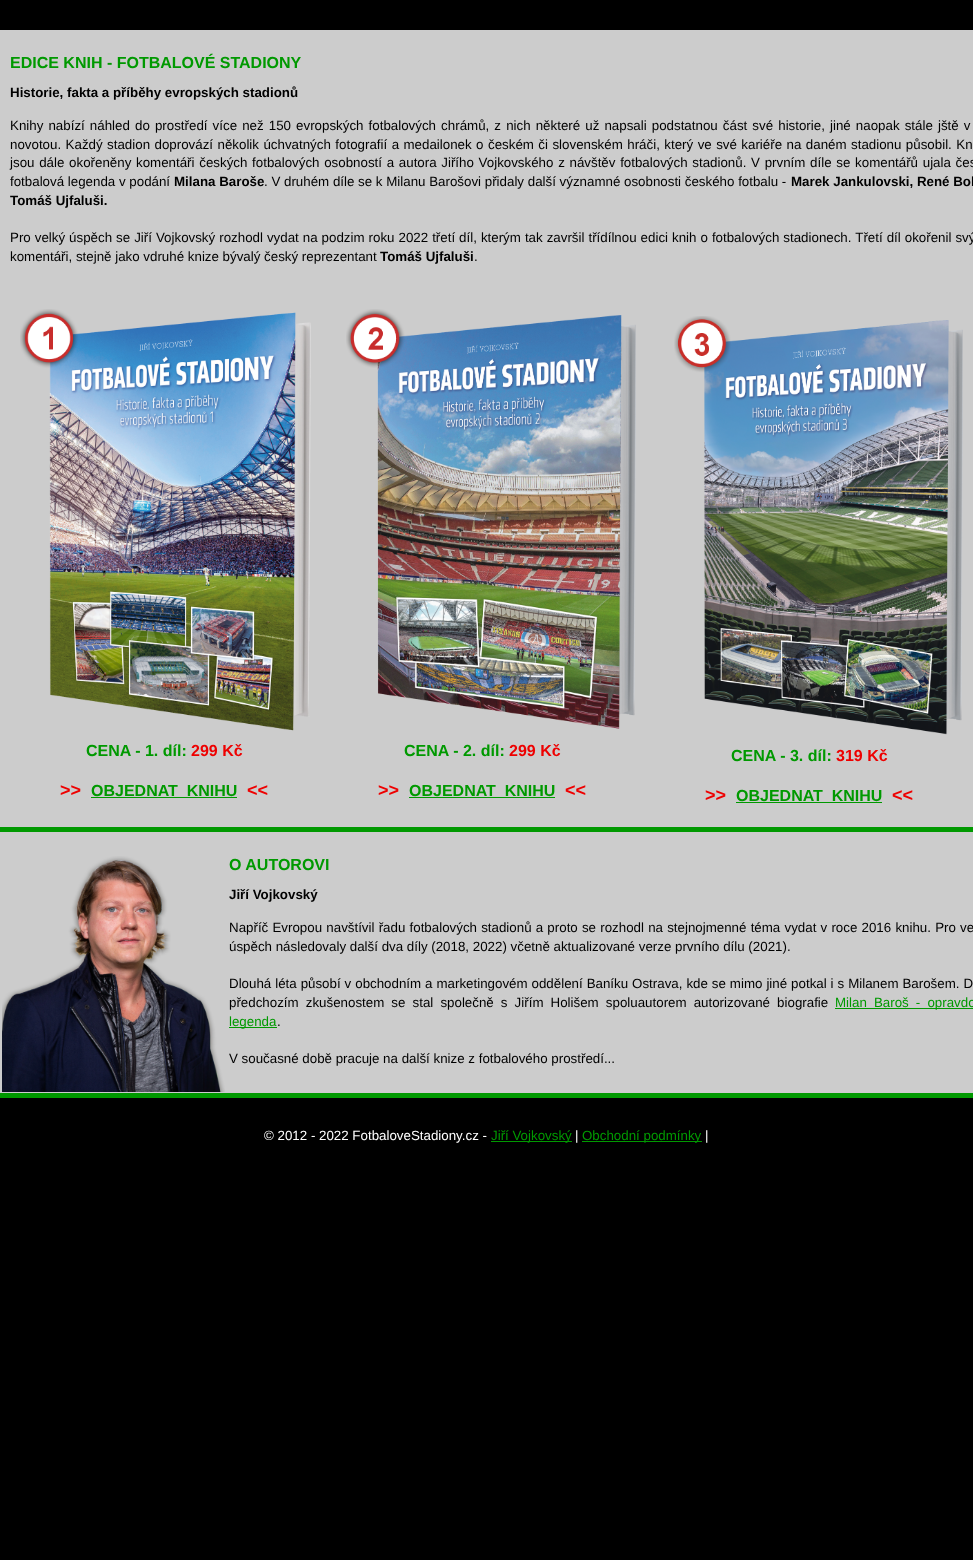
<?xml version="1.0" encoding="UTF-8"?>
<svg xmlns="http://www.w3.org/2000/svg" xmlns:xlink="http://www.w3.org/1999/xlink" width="973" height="1560">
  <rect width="100%" height="100%" fill="#000000" />
  <rect y="30" width="973" height="797" fill="#cccccc" />
  <rect y="827" width="973" height="5" fill="#009900" />
  <image x="20" y="309" width="291" height="422" xlink:href="image1.png" />
  <rect x="91" y="797" width="146" height="1" fill="#009900" />
  <image x="346" y="309" width="290" height="420" xlink:href="image2.png" />
  <rect x="409" y="797" width="146" height="1" fill="#009900" />
  <image x="674" y="316" width="289" height="419" xlink:href="image3.png" />
  <rect x="736" y="802" width="146" height="1" fill="#009900" />
  <rect y="832" width="973" height="261" fill="#cccccc" />
  <rect y="1093" width="973" height="5" fill="#009900" />
  <image x="2" y="856" width="223" height="236" xlink:href="image4.png" />
  <rect x="835" y="1008" width="138" height="1" fill="#009900" />
  <rect x="229" y="1027" width="48" height="1" fill="#009900" />
  <rect x="491" y="1141" width="81" height="1" fill="#009900" />
  <rect x="582" y="1141" width="120" height="1" fill="#009900" />
  <text x="10" y="68" style="font-family: Liberation Sans; font-size: 16px; font-weight: bold; fill: #009900">EDICE KNIH - FOTBALOVÉ STADIONY</text>
  <text x="10" y="97" style="font-family: Liberation Sans; font-size: 13.33px; font-weight: bold; fill: #000000">Historie, fakta a příběhy evropských stadionů</text>
  <text x="10" y="130" word-spacing="1.4" style="font-family: Liberation Sans; font-size: 13.33px; fill: #000000">Knihy nabízí náhled do prostředí více než 150 evropských fotbalových chrámů, z nich některé už napsali podstatnou část své historie, jiné naopak stále jště v</text>
  <text x="10" y="149" word-spacing="0.75" style="font-family: Liberation Sans; font-size: 13.33px; fill: #000000">novotou. Každý stadion doprovází několik úchvatných fotografií a medailonek o českém či slovenském hráči, který ve své kariéře na daném stadionu působil. Kn</text>
  <text x="10" y="167" word-spacing="1" style="font-family: Liberation Sans; font-size: 13.33px; fill: #000000">jsou dále okořeněny komentáři českých fotbalových osobností a autora Jiřího Vojkovského z návštěv fotbalových stadionů. V prvním díle se komentářů ujala čes</text>
  <text x="10" y="186" style="font-family: Liberation Sans; font-size: 13.33px; fill: #000000">fotbalová legenda v podání</text>
  <text x="174" y="186" style="font-family: Liberation Sans; font-size: 13.33px; font-weight: bold; fill: #000000">Milana Baroše</text>
  <text x="264" y="186" style="font-family: Liberation Sans; font-size: 13.33px; fill: #000000">. V druhém díle se k Milanu Barošovi přidaly další významné osobnosti českého fotbalu -</text>
  <text x="791" y="186" style="font-family: Liberation Sans; font-size: 13.33px; font-weight: bold; fill: #000000">Marek Jankulovski, René Bol</text>
  <text x="10" y="205" style="font-family: Liberation Sans; font-size: 13.33px; font-weight: bold; fill: #000000">Tomáš Ujfaluši.</text>
  <text x="10" y="242" word-spacing="0.3" style="font-family: Liberation Sans; font-size: 13.33px; fill: #000000">Pro velký úspěch se Jiří Vojkovský rozhodl vydat na podzim roku 2022 třetí díl, kterým tak završil třídílnou edici knih o fotbalových stadionech. Třetí díl okořenil svý</text>
  <text x="10" y="261" style="font-family: Liberation Sans; font-size: 13.33px; fill: #000000">komentáři, stejně jako vdruhé knize bývalý český reprezentant</text>
  <text x="380" y="261" style="font-family: Liberation Sans; font-size: 13.33px; font-weight: bold; fill: #000000">Tomáš Ujfaluši</text>
  <text x="474" y="261" style="font-family: Liberation Sans; font-size: 13.33px; fill: #000000">.</text>
  <text x="86" y="756" style="font-family: Liberation Sans; font-size: 16px; font-weight: bold; fill: #009900">CENA - 1. díl:</text>
  <text x="191" y="756" style="font-family: Liberation Sans; font-size: 16px; font-weight: bold; fill: #ee0000">299 Kč</text>
  <text x="60" y="796" style="font-family: Liberation Sans; font-size: 18px; font-weight: bold; fill: #ee0000">&gt;&gt;</text>
  <text x="91" y="796" style="font-family: Liberation Sans; font-size: 16px; font-weight: bold; fill: #009900" xml:space="preserve">OBJEDNAT  KNIHU</text>
  <text x="247" y="796" style="font-family: Liberation Sans; font-size: 18px; font-weight: bold; fill: #ee0000">&lt;&lt;</text>
  <text x="404" y="756" style="font-family: Liberation Sans; font-size: 16px; font-weight: bold; fill: #009900">CENA - 2. díl:</text>
  <text x="509" y="756" style="font-family: Liberation Sans; font-size: 16px; font-weight: bold; fill: #ee0000">299 Kč</text>
  <text x="378" y="796" style="font-family: Liberation Sans; font-size: 18px; font-weight: bold; fill: #ee0000">&gt;&gt;</text>
  <text x="409" y="796" style="font-family: Liberation Sans; font-size: 16px; font-weight: bold; fill: #009900" xml:space="preserve">OBJEDNAT  KNIHU</text>
  <text x="565" y="796" style="font-family: Liberation Sans; font-size: 18px; font-weight: bold; fill: #ee0000">&lt;&lt;</text>
  <text x="731" y="761" style="font-family: Liberation Sans; font-size: 16px; font-weight: bold; fill: #009900">CENA - 3. díl:</text>
  <text x="836" y="761" style="font-family: Liberation Sans; font-size: 16px; font-weight: bold; fill: #ee0000">319 Kč</text>
  <text x="705" y="801" style="font-family: Liberation Sans; font-size: 18px; font-weight: bold; fill: #ee0000">&gt;&gt;</text>
  <text x="736" y="801" style="font-family: Liberation Sans; font-size: 16px; font-weight: bold; fill: #009900" xml:space="preserve">OBJEDNAT  KNIHU</text>
  <text x="892" y="801" style="font-family: Liberation Sans; font-size: 18px; font-weight: bold; fill: #ee0000">&lt;&lt;</text>
  <text x="229" y="870" style="font-family: Liberation Sans; font-size: 16px; font-weight: bold; fill: #009900">O AUTOROVI</text>
  <text x="229" y="899" style="font-family: Liberation Sans; font-size: 13.33px; font-weight: bold; fill: #000000">Jiří Vojkovský</text>
  <text x="229" y="932" word-spacing="0.5" style="font-family: Liberation Sans; font-size: 13.33px; fill: #000000">Napříč Evropou navštívil řadu fotbalových stadionů a proto se rozhodl na stejnojmenné téma vydat v roce 2016 knihu. Pro ve</text>
  <text x="229" y="951" style="font-family: Liberation Sans; font-size: 13.33px; fill: #000000">úspěch následovaly další dva díly (2018, 2022) včetně aktualizované verze prvního dílu (2021).</text>
  <text x="229" y="988" word-spacing="0.25" style="font-family: Liberation Sans; font-size: 13.33px; fill: #000000">Dlouhá léta působí v obchodním a marketingovém oddělení Baníku Ostrava, kde se mimo jiné potkal i s Milanem Barošem. D</text>
  <text x="229" y="1007" word-spacing="3.4" style="font-family: Liberation Sans; font-size: 13.33px; fill: #000000">předchozím zkušenostem se stal společně s Jiřím Holišem spoluautorem autorizované biografie</text>
  <text x="835" y="1007" word-spacing="3.4" style="font-family: Liberation Sans; font-size: 13.33px; fill: #009900">Milan Baroš - opravdo</text>
  <text x="229" y="1026" style="font-family: Liberation Sans; font-size: 13.33px; fill: #009900">legenda</text>
  <text x="277" y="1026" style="font-family: Liberation Sans; font-size: 13.33px; fill: #000000">.</text>
  <text x="229" y="1063" style="font-family: Liberation Sans; font-size: 13.33px; fill: #000000">V současné době pracuje na další knize z fotbalového prostředí...</text>
  <text x="264" y="1140" style="font-family: Liberation Sans; font-size: 13.33px; fill: #ffffff">© 2012 - 2022 FotbaloveStadiony.cz -</text>
  <text x="491" y="1140" style="font-family: Liberation Sans; font-size: 13.33px; fill: #009900">Jiří Vojkovský</text>
  <text x="575" y="1140" style="font-family: Liberation Sans; font-size: 13.33px; fill: #ffffff">|</text>
  <text x="582" y="1140" style="font-family: Liberation Sans; font-size: 13.33px; fill: #009900">Obchodní podmínky</text>
  <text x="705" y="1140" style="font-family: Liberation Sans; font-size: 13.33px; fill: #ffffff">|</text>
</svg>
